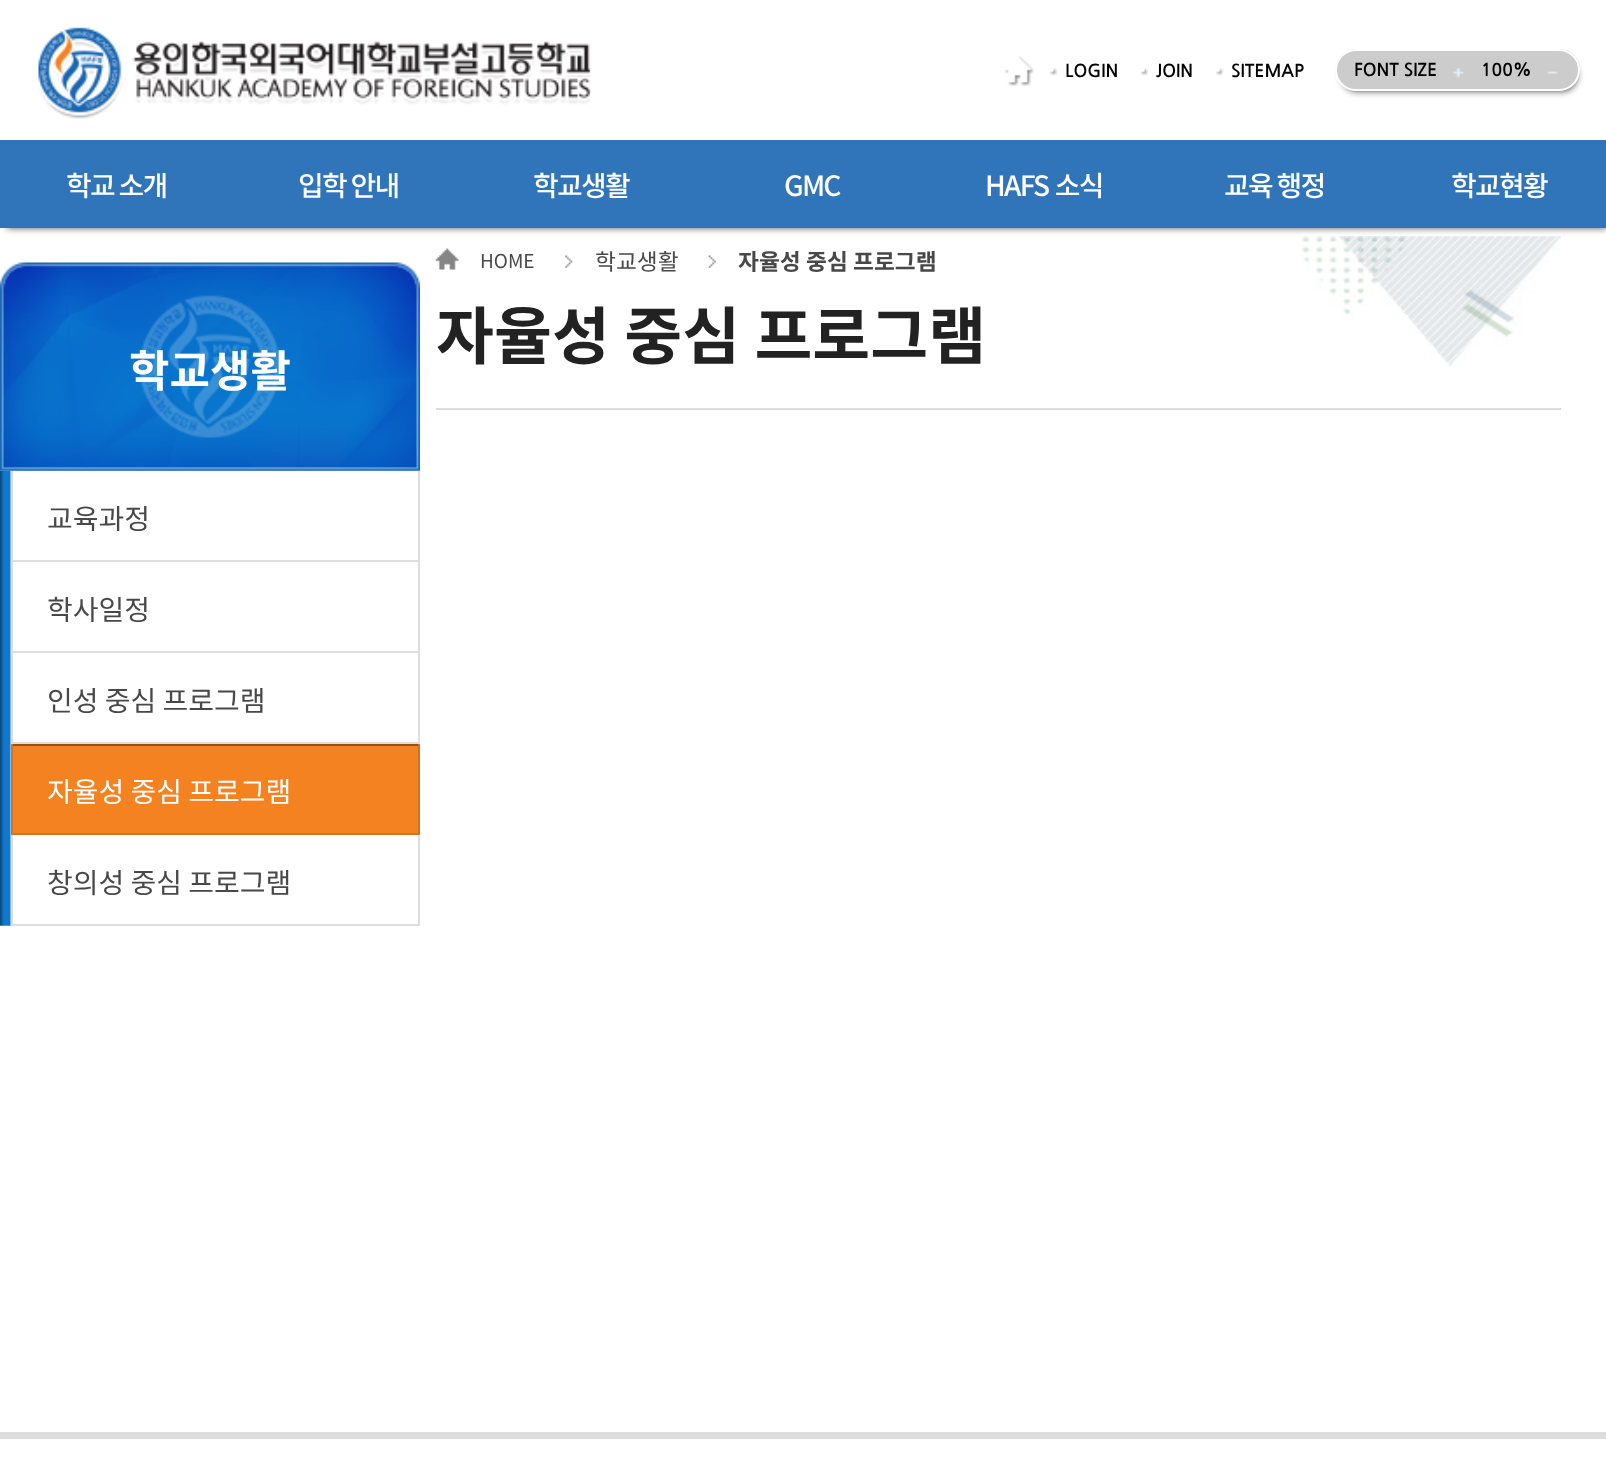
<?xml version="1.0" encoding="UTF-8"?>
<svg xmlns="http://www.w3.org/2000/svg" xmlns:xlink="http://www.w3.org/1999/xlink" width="1606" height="1471">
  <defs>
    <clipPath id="clip1"><path d="M 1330 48 h 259 v 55 h -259 z m 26 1 h 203 c 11.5 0 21 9.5 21 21 c 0 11.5 -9.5 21 -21 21 h -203 c -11.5 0 -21 -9.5 -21 -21 c 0 -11.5 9.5 -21 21 -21 z" clip-rule="evenodd" /></clipPath>
  </defs>
  <rect width="100%" height="100%" fill="#ffffff" />
  <image x="1004" y="56" width="30" height="30" xlink:href="image1.png" />
  <image x="1050" y="68" width="7" height="8" xlink:href="image2.png" />
  <image x="1141" y="68" width="7" height="8" xlink:href="image3.png" />
  <image x="1216" y="68" width="8" height="8" xlink:href="image4.png" />
  <g clip-path="url(#clip1)">
    <rect x="1342" y="60" width="235" height="31" rx="15.5" fill="#000000" fill-opacity="0.75" filter="blur(3.5px)" />
  </g>
  <image x="1335" y="49" width="245" height="42" xlink:href="image5.png" />
  <rect x="1336" y="50" width="243" height="40" rx="20" fill="none" stroke="#ffffff" stroke-width="2" />
  <image x="1452" y="68" width="12" height="10" xlink:href="image6.png" />
  <image x="1547" y="71" width="11" height="3" xlink:href="image7.png" />
  <image x="38" y="27" width="553" height="92" xlink:href="image8.png" />
  <image x="1301" y="236" width="260" height="131" xlink:href="image9.png" />
  <rect x="7" y="151" width="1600" height="77" fill="#1a1a1a" fill-opacity="0.75" filter="blur(3.5px)" />
  <rect y="140" width="1606" height="88" fill="#3075ba" />
  <rect x="436" y="408" width="1125" height="2" fill="#dddddd" />
  <image x="435" y="248" width="24" height="22" xlink:href="image10.png" />
  <image x="565" y="255" width="8" height="13" xlink:href="image11.png" />
  <image x="708" y="255" width="8" height="13" xlink:href="image12.png" />
  <image x="0" y="470" width="11" height="456" xlink:href="image14.png" />
  <image x="0" y="262" width="420" height="209" xlink:href="image13.png" />
  <rect x="418" y="471" width="2" height="273" fill="#dddddd" />
  <rect x="11" y="560" width="409" height="2" fill="#dedede" />
  <rect x="11" y="471" width="2" height="91" fill="#dddddd" />
  <rect x="11" y="651" width="409" height="2" fill="#dedede" />
  <rect x="11" y="562" width="2" height="91" fill="#dddddd" />
  <rect x="11" y="742" width="409" height="2" fill="#dedede" />
  <rect x="11" y="653" width="2" height="91" fill="#dddddd" />
  <rect x="13" y="746" width="405" height="87" fill="#f58220" />
  <rect x="11" y="744" width="409" height="2" fill="#995114" />
  <rect x="418" y="744" width="2" height="91" fill="#d6721c" />
  <rect x="11" y="833" width="409" height="2" fill="#d6721c" />
  <rect x="11" y="744" width="2" height="91" fill="#d6721c" />
  <rect x="418" y="835" width="2" height="91" fill="#dddddd" />
  <rect x="11" y="924" width="409" height="2" fill="#dedede" />
  <rect x="11" y="835" width="2" height="91" fill="#dddddd" />
  <rect y="1432" width="1606" height="7" fill="#dddddd" />
  <text x="1065" y="77" style="font-family: NanumGothic; font-size: 17.5px; font-weight: bold; fill: #000000">LOGIN</text>
  <text x="1156" y="77" style="font-family: NanumGothic; font-size: 17.5px; font-weight: bold; fill: #000000">JOIN</text>
  <text x="1231" y="77" style="font-family: NanumGothic; font-size: 17.5px; font-weight: bold; fill: #000000">SITEMAP</text>
  <text x="1354" y="76" style="font-family: NanumGothic; font-size: 17.5px; font-weight: bold; fill: #000000">FONT SIZE</text>
  <text x="1481" y="76" style="font-family: NanumGothic; font-size: 17.5px; font-weight: bold; fill: #000000">100%</text>
  <text x="66" y="196" style="font-family: Noto Sans KR; font-size: 28px; font-weight: 500; letter-spacing: -1.75px; fill: #ffffff">학교 소개</text>
  <text x="298" y="196" style="font-family: Noto Sans KR; font-size: 28px; font-weight: 500; letter-spacing: -1.75px; fill: #ffffff">입학 안내</text>
  <text x="533" y="196" style="font-family: Noto Sans KR; font-size: 28px; font-weight: 500; letter-spacing: -1.75px; fill: #ffffff">학교생활</text>
  <text x="784" y="196" style="font-family: Noto Sans KR; font-size: 28px; font-weight: 500; letter-spacing: -1.75px; fill: #ffffff">GMC</text>
  <text x="985" y="196" word-spacing="2" style="font-family: Noto Sans KR; font-size: 28px; font-weight: 500; letter-spacing: -1.75px; fill: #ffffff">HAFS 소식</text>
  <text x="1224" y="196" style="font-family: Noto Sans KR; font-size: 28px; font-weight: 500; letter-spacing: -1.75px; fill: #ffffff">교육 행정</text>
  <text x="1451" y="196" style="font-family: Noto Sans KR; font-size: 28px; font-weight: 500; letter-spacing: -1.75px; fill: #ffffff">학교현황</text>
  <text x="480" y="268" style="font-family: Noto Sans KR; font-size: 19px; fill: #484848">HOME</text>
  <text x="595" y="270" style="font-family: Noto Sans KR; font-size: 22.75px; fill: #484848">학교생활</text>
  <text x="738" y="270" style="font-family: Noto Sans KR; font-size: 22.75px; font-weight: bold; fill: #484848">자율성 중심 프로그램</text>
  <text x="436" y="359" style="font-family: Noto Sans KR; font-size: 63px; font-weight: bold; fill: #222222">자율성 중심 프로그램</text>
  <text x="129" y="387" style="font-family: Noto Sans KR; font-size: 44px; font-weight: bold; fill: #ffffff">학교생활</text>
  <text x="47" y="529" style="font-family: Noto Sans KR; font-size: 28px; fill: #484848">교육과정</text>
  <text x="47" y="620" style="font-family: Noto Sans KR; font-size: 28px; fill: #484848">학사일정</text>
  <text x="47" y="711" style="font-family: Noto Sans KR; font-size: 28px; fill: #484848">인성 중심 프로그램</text>
  <text x="47" y="802" style="font-family: Noto Sans KR; font-size: 28px; fill: #ffffff">자율성 중심 프로그램</text>
  <text x="47" y="893" style="font-family: Noto Sans KR; font-size: 28px; fill: #484848">창의성 중심 프로그램</text>
</svg>
